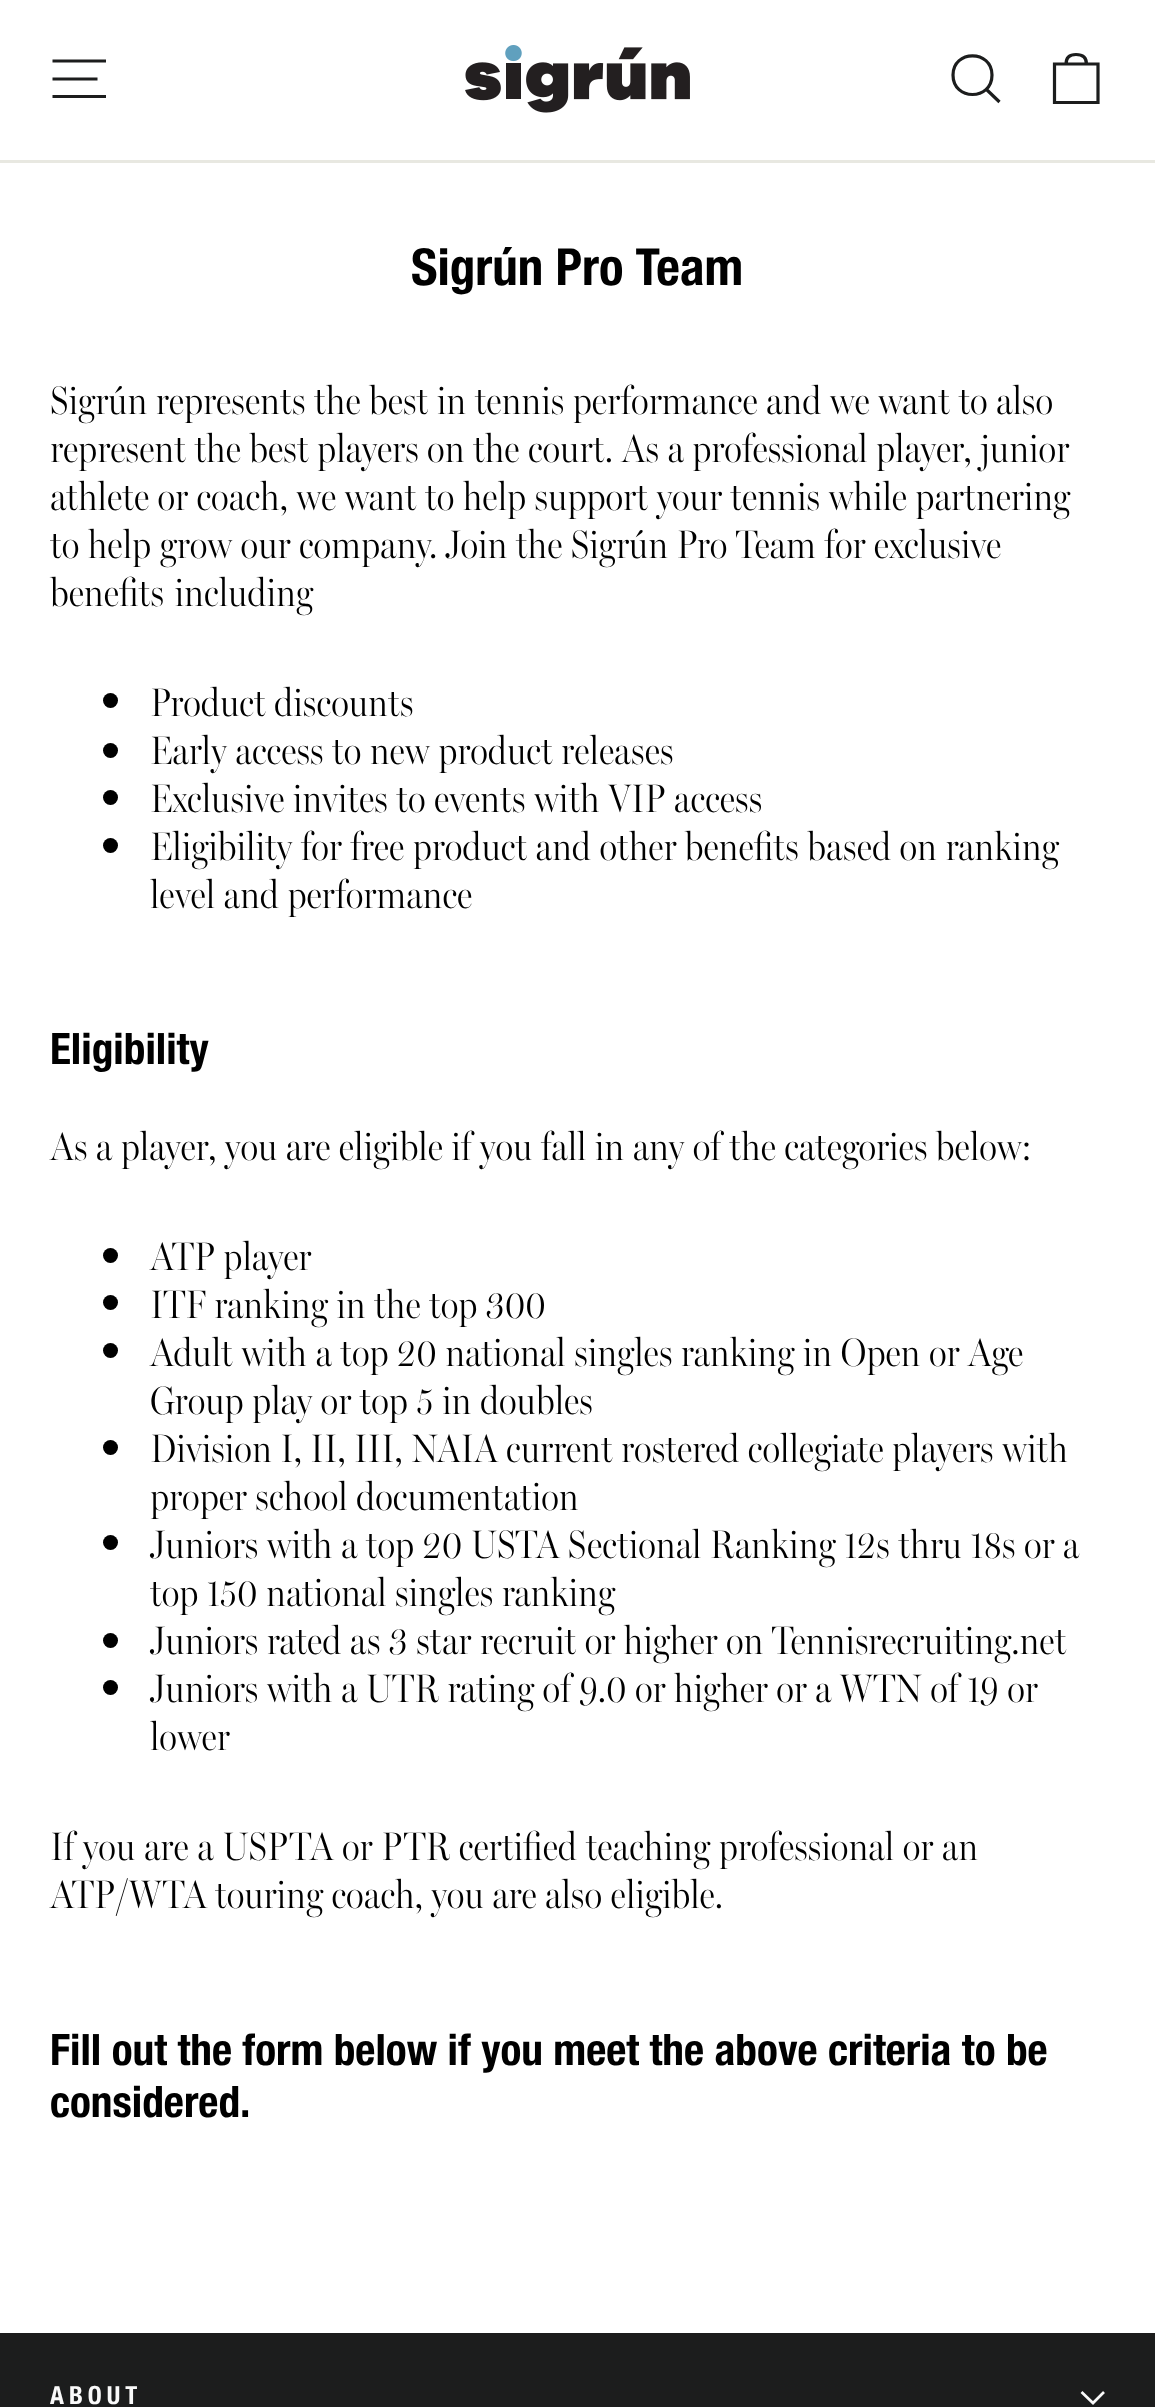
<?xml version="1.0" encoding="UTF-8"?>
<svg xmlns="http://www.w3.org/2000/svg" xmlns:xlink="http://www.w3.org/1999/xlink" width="1155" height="2407">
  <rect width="100%" height="100%" fill="#ffffff" />
  <rect y="160" width="1155" height="3" fill="#e8e8e1" />
  <path d="M 52.5 61 h 53.5 m -53.5 18 h 45 m -45 17.5 h 53.5" fill="none" stroke="#1c1d1d" stroke-width="3.2" />
  <image x="465" y="45" width="225" height="68" xlink:href="image1.png" />
  <path d="M 992 75 c 0 26 -39 26 -39 0 c 0 -25.5 39 -25.5 39 0 z m 7.5 27 l -13 -12.5" fill="none" stroke="#1c1d1d" stroke-width="3.2" />
  <path d="M 1054.5 64 h 43.5 v 38.5 h -43.5 z m 11.5 0 c 0 -7.5 4.5 -9.5 10 -9.5 c 6 0 10.5 2 10.5 9.5" fill="none" stroke="#1c1d1d" stroke-width="3.2" />
  <circle cx="110.5" cy="700.5" r="7.5" fill="#000000" />
  <circle cx="110.5" cy="750.5" r="7.5" fill="#000000" />
  <circle cx="110.5" cy="797.5" r="7.5" fill="#000000" />
  <circle cx="110.5" cy="845.5" r="7.5" fill="#000000" />
  <circle cx="110.5" cy="1255.5" r="7.5" fill="#000000" />
  <circle cx="110.5" cy="1302.5" r="7.5" fill="#000000" />
  <circle cx="110.5" cy="1350.5" r="7.5" fill="#000000" />
  <circle cx="110.5" cy="1447.5" r="7.5" fill="#000000" />
  <circle cx="110.5" cy="1542.5" r="7.5" fill="#000000" />
  <circle cx="110.5" cy="1640.5" r="7.5" fill="#000000" />
  <circle cx="110.5" cy="1687.5" r="7.5" fill="#000000" />
  <rect y="2333" width="1155" height="74" fill="#1c1d1d" />
  <path d="M 1081.5 2392 l 11.5 11 l 11 -11" fill="none" stroke="#fafafa" stroke-width="2.7" />
  <text x="411" y="285" style="font-family: Helvetica Neue; font-size: 51px; font-weight: bold; fill: #000000">Sigrún Pro Team</text>
  <text x="50" y="414" style="font-family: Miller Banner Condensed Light; font-size: 40px; font-weight: 300; fill: #000000">Sigrún represents the best in tennis performance and we want to also</text>
  <text x="50" y="462" style="font-family: Miller Banner Condensed Light; font-size: 40px; font-weight: 300; fill: #000000">represent the best players on the court. As a professional player, junior</text>
  <text x="50" y="510" style="font-family: Miller Banner Condensed Light; font-size: 40px; font-weight: 300; fill: #000000">athlete or coach, we want to help support your tennis while partnering</text>
  <text x="50" y="558" style="font-family: Miller Banner Condensed Light; font-size: 40px; font-weight: 300; fill: #000000">to help grow our company. Join the Sigrún Pro Team for exclusive</text>
  <text x="50" y="606" word-spacing="2" style="font-family: Miller Banner Condensed Light; font-size: 40px; font-weight: 300; fill: #000000">benefits including</text>
  <text x="150" y="716" style="font-family: Miller Banner Condensed Light; font-size: 40px; font-weight: 300; fill: #000000">Product discounts</text>
  <text x="150" y="764" style="font-family: Miller Banner Condensed Light; font-size: 40px; font-weight: 300; fill: #000000">Early access to new product releases</text>
  <text x="150" y="812" style="font-family: Miller Banner Condensed Light; font-size: 40px; font-weight: 300; fill: #000000">Exclusive invites to events with VIP access</text>
  <text x="150" y="860" style="font-family: Miller Banner Condensed Light; font-size: 40px; font-weight: 300; fill: #000000">Eligibility for free product and other benefits based on ranking</text>
  <text x="150" y="908" style="font-family: Miller Banner Condensed Light; font-size: 40px; font-weight: 300; fill: #000000">level and performance</text>
  <text x="50" y="1064" style="font-family: Helvetica Neue; font-size: 43.35px; font-weight: bold; fill: #000000">Eligibility</text>
  <text x="50" y="1160" style="font-family: Miller Banner Condensed Light; font-size: 40px; font-weight: 300; fill: #000000">As a player, you are eligible if you fall in any of the categories below:</text>
  <text x="150" y="1270" style="font-family: Miller Banner Condensed Light; font-size: 40px; font-weight: 300; fill: #000000">ATP player</text>
  <text x="150" y="1318" style="font-family: Miller Banner Condensed Light; font-size: 40px; font-weight: 300; fill: #000000">ITF ranking in the top 300</text>
  <text x="150" y="1366" style="font-family: Miller Banner Condensed Light; font-size: 40px; font-weight: 300; fill: #000000">Adult with a top 20 national singles ranking in Open or Age</text>
  <text x="150" y="1414" style="font-family: Miller Banner Condensed Light; font-size: 40px; font-weight: 300; fill: #000000">Group play or top 5 in doubles</text>
  <text x="150" y="1462" style="font-family: Miller Banner Condensed Light; font-size: 40px; font-weight: 300; fill: #000000">Division I, II, III, NAIA current rostered collegiate players with</text>
  <text x="150" y="1510" style="font-family: Miller Banner Condensed Light; font-size: 40px; font-weight: 300; fill: #000000">proper school documentation</text>
  <text x="150" y="1558" style="font-family: Miller Banner Condensed Light; font-size: 40px; font-weight: 300; fill: #000000">Juniors with a top 20 USTA Sectional Ranking 12s thru 18s or a</text>
  <text x="150" y="1606" style="font-family: Miller Banner Condensed Light; font-size: 40px; font-weight: 300; fill: #000000">top 150 national singles ranking</text>
  <text x="150" y="1654" style="font-family: Miller Banner Condensed Light; font-size: 40px; font-weight: 300; fill: #000000">Juniors rated as 3 star recruit or higher on Tennisrecruiting.net</text>
  <text x="150" y="1702" style="font-family: Miller Banner Condensed Light; font-size: 40px; font-weight: 300; fill: #000000">Juniors with a UTR rating of 9.0 or higher or a WTN of 19 or</text>
  <text x="150" y="1750" style="font-family: Miller Banner Condensed Light; font-size: 40px; font-weight: 300; fill: #000000">lower</text>
  <text x="50" y="1860" word-spacing="0.25" style="font-family: Miller Banner Condensed Light; font-size: 40px; font-weight: 300; fill: #000000">If you are a USPTA or PTR certified teaching professional or an</text>
  <text x="50" y="1908" style="font-family: Miller Banner Condensed Light; font-size: 40px; font-weight: 300; fill: #000000">ATP/WTA touring coach, you are also eligible.</text>
  <text x="50" y="2065" style="font-family: Helvetica Neue; font-size: 43.35px; font-weight: bold; fill: #000000">Fill out the form below if you meet the above criteria to be</text>
  <text x="50" y="2117" style="font-family: Helvetica Neue; font-size: 43.35px; font-weight: bold; fill: #000000">considered.</text>
  <text x="50" y="2404" style="font-family: Helvetica Neue; font-size: 25px; font-weight: bold; letter-spacing: 5px; fill: #fafafa">ABOUT</text>
</svg>
